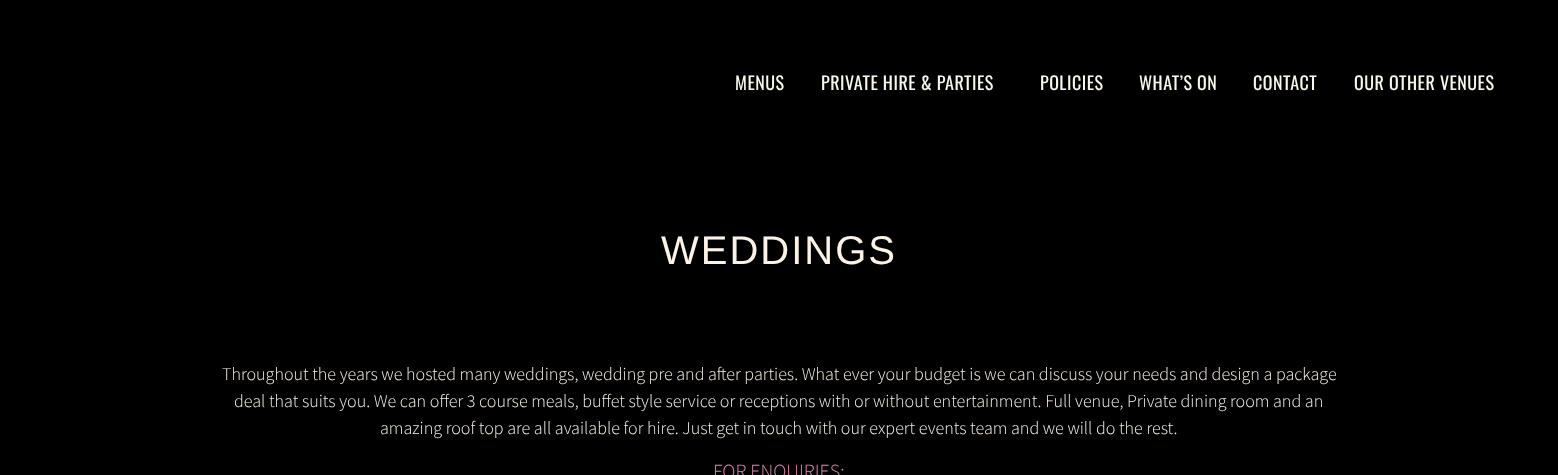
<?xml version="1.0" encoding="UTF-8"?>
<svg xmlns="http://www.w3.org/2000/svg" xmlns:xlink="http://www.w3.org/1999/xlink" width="1558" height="475">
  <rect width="100%" height="100%" fill="#000000" />
  <text x="735" y="90" style="font-family: Oswald; font-size: 18px; letter-spacing: 0.5px; fill: #faf8ed">MENUS</text>
  <text x="821" y="90" style="font-family: Oswald; font-size: 18px; letter-spacing: 0.5px; fill: #faf8ed">PRIVATE HIRE &amp; PARTIES</text>
  <text x="1040" y="90" style="font-family: Oswald; font-size: 18px; letter-spacing: 0.5px; fill: #faf8ed">POLICIES</text>
  <text x="1139" y="90" style="font-family: Oswald; font-size: 18px; letter-spacing: 0.5px; fill: #faf8ed">WHAT’S ON</text>
  <text x="1253" y="90" style="font-family: Oswald; font-size: 18px; letter-spacing: 0.5px; fill: #faf8ed">CONTACT</text>
  <text x="1354" y="90" style="font-family: Oswald; font-size: 18px; letter-spacing: 0.5px; fill: #faf8ed">OUR OTHER VENUES</text>
  <text x="661" y="264" style="font-family: Liberation Sans; font-size: 40px; letter-spacing: 2px; fill: #fcf2e8">WEDDINGS</text>
  <text x="222" y="380" style="font-family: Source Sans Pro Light; font-size: 18px; font-weight: 300; fill: #fcf2e8">Throughout the years we hosted many weddings, wedding pre and after parties. What ever your budget is we can discuss your needs and design a package</text>
  <text x="234" y="407" style="font-family: Source Sans Pro Light; font-size: 18px; font-weight: 300; fill: #fcf2e8">deal that suits you. We can offer 3 course meals, buffet style service or receptions with or without entertainment. Full venue, Private dining room and an</text>
  <text x="380" y="434" style="font-family: Source Sans Pro Light; font-size: 18px; font-weight: 300; fill: #fcf2e8">amazing roof top are all available for hire. Just get in touch with our expert events team and we will do the rest.</text>
  <text x="713" y="478" style="font-family: Source Sans Pro Light; font-size: 20px; font-weight: 300; fill: #da8ab2">FOR ENQUIRIES:</text>
</svg>
